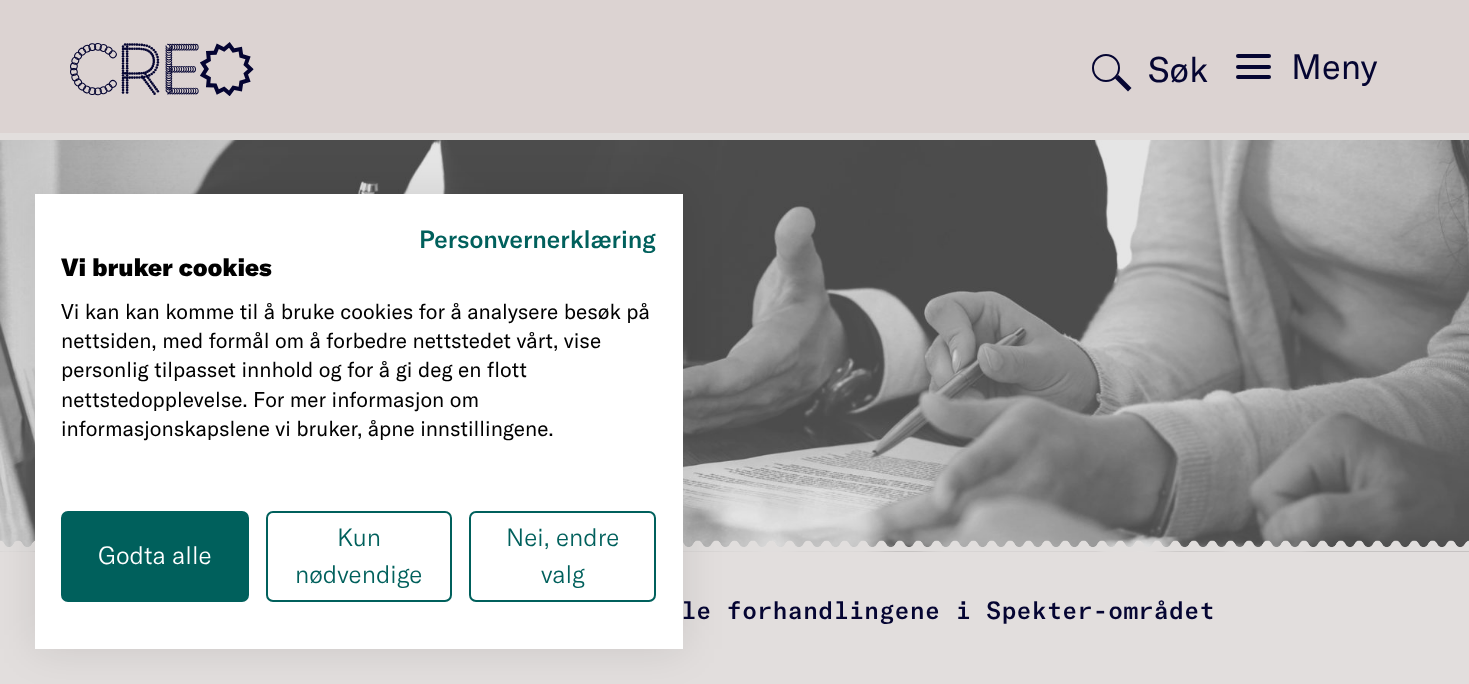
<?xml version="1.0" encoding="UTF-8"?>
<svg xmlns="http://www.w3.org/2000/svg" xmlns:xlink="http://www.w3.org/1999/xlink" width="1469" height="684">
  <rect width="100%" height="100%" fill="#e2dedd" />
  <rect width="1469" height="133" fill="#dcd3d2" />
  <image x="70" y="42" width="184" height="54" xlink:href="image1.png" />
  <path d="M 1118.5 75 l 13 13 l -3.5 3.5 l -13 -13 z" fill="#050532" />
  <circle cx="1106" cy="68" r="13" fill="none" stroke="#050532" stroke-width="2" />
  <rect x="1236" y="65" width="35" height="4" rx="2" fill="#050532" />
  <rect x="1236" y="54" width="35" height="4" rx="2" fill="#050532" />
  <rect x="1236" y="75" width="35" height="4" rx="2" fill="#050532" />
  <image x="0" y="140" width="1469" height="412" xlink:href="image2.png" />
  <image x="0" y="540" width="1469" height="12" xlink:href="image3.png" />
  <rect x="35" y="194" width="648" height="455" fill="#000000" fill-opacity="0.1" filter="blur(21px)" />
  <rect x="35" y="194" width="648" height="455" fill="#ffffff" />
  <rect x="62" y="512" width="186" height="89" rx="6" fill="#00605c" stroke="#00605c" stroke-width="2" />
  <rect x="267" y="512" width="184" height="89" rx="6" fill="none" stroke="#00605c" stroke-width="2" />
  <rect x="470" y="512" width="185" height="89" rx="6" fill="none" stroke="#00605c" stroke-width="2" />
  <text x="1148" y="82" style="font-family: GT America; font-size: 35px; fill: #050532">Søk</text>
  <text x="1291" y="79" style="font-family: GT America; font-size: 35px; fill: #050532">Meny</text>
  <text x="419" y="248" style="font-family: GT America; font-size: 24.5px; font-weight: 500; fill: #00605c">Personvernerklæring</text>
  <text x="61" y="276" style="font-family: GT America; font-size: 24.5px; font-weight: 900; fill: #000000">Vi bruker cookies</text>
  <text x="61" y="319" style="font-family: GT America; font-size: 21px; fill: #000000">Vi kan kan komme til å bruke cookies for å analysere besøk på</text>
  <text x="61" y="348" style="font-family: GT America; font-size: 21px; fill: #000000">nettsiden, med formål om å forbedre nettstedet vårt, vise</text>
  <text x="61" y="377" style="font-family: GT America; font-size: 21px; fill: #000000">personlig tilpasset innhold og for å gi deg en flott</text>
  <text x="61" y="407" style="font-family: GT America; font-size: 21px; fill: #000000">nettstedopplevelse. For mer informasjon om</text>
  <text x="61" y="436" style="font-family: GT America; font-size: 21px; fill: #000000">informasjonskapslene vi bruker, åpne innstillingene.</text>
  <text x="98" y="564" style="font-family: GT America; font-size: 24.5px; font-weight: 300; fill: #ffffff">Godta alle</text>
  <text x="337" y="546" style="font-family: GT America; font-size: 24.5px; font-weight: 300; fill: #00605c">Kun</text>
  <text x="295" y="583" style="font-family: GT America; font-size: 24.5px; font-weight: 300; fill: #00605c">nødvendige</text>
  <text x="506" y="546" style="font-family: GT America; font-size: 24.5px; font-weight: 300; fill: #00605c">Nei, endre</text>
  <text x="541" y="583" style="font-family: GT America; font-size: 24.5px; font-weight: 300; fill: #00605c">valg</text>
  <text x="681" y="619" style="font-family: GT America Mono; font-size: 24.6px; font-weight: 500; fill: #050532">le forhandlingene i Spekter-området</text>
</svg>
